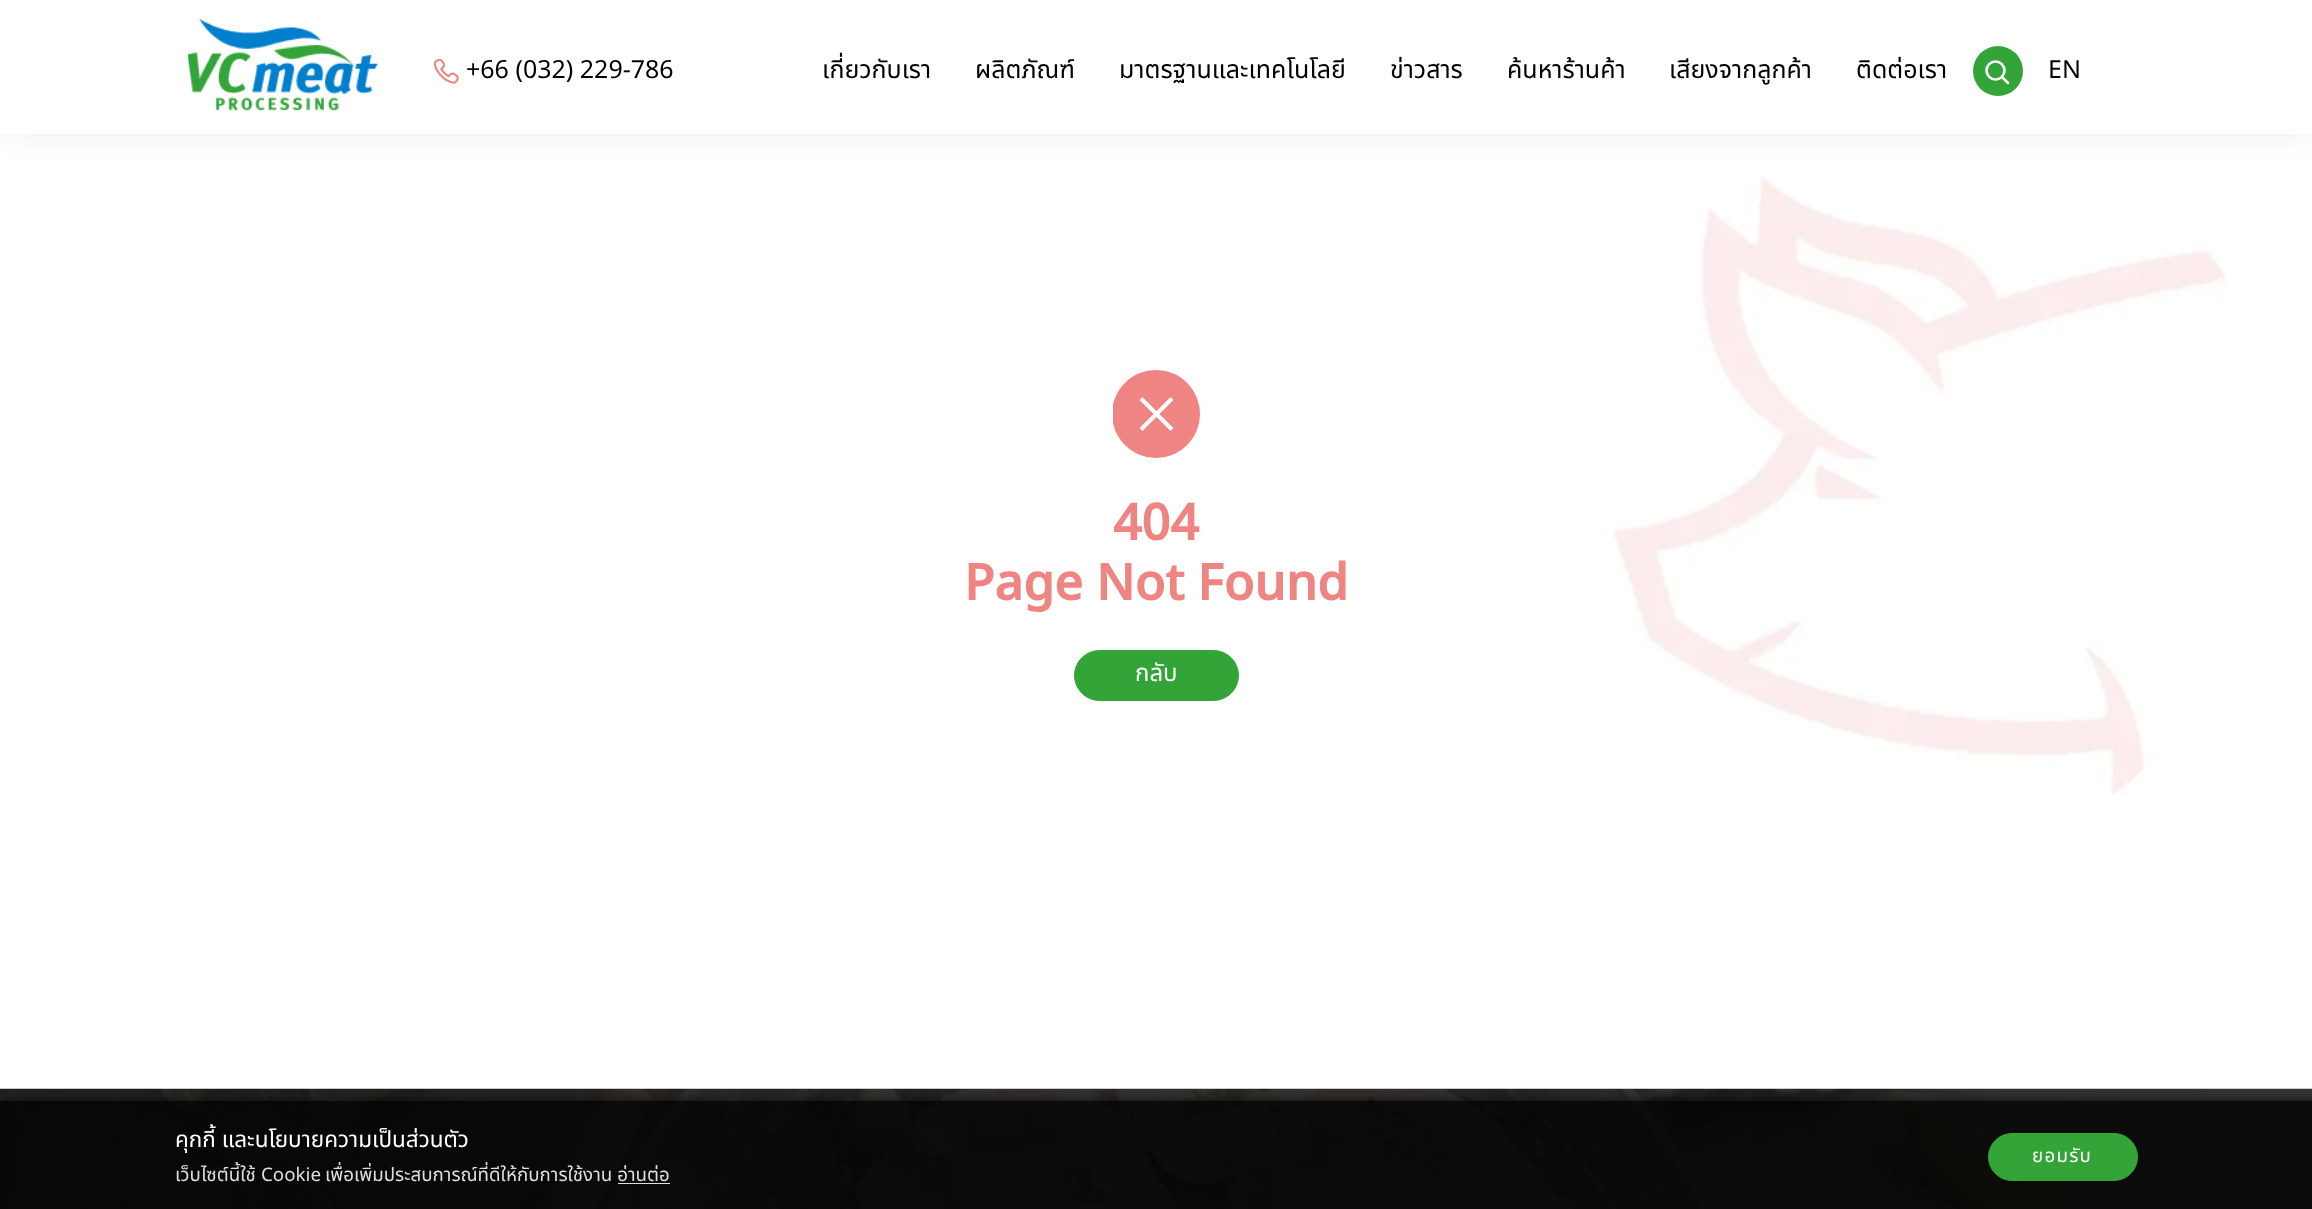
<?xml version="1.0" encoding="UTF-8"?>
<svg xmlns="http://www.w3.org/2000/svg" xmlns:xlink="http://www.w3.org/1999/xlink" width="2312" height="1209">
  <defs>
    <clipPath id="clip1"><rect x="1113" y="370" width="87" height="88" /></clipPath>
    <clipPath id="clip2"><path d="M 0 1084 h 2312 v 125 h -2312 z m 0 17 h 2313 v 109 h -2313 z" clip-rule="evenodd" /></clipPath>
  </defs>
  <rect width="100%" height="100%" fill="#ffffff" />
  <image x="1613" y="175" width="615" height="621" xlink:href="image3.png" />
  <rect x="3" y="-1" width="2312" height="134" fill="#000000" fill-opacity="0.07" filter="blur(15.5px)" />
  <rect width="2312" height="134" fill="#ffffff" />
  <image x="188" y="18" width="190" height="93" xlink:href="image1.png" />
  <image x="434" y="59" width="25" height="25" xlink:href="image2.png" />
  <circle cx="1998" cy="71" r="25" fill="#33a437" />
  <circle cx="1995.5" cy="70.5" r="9" fill="none" stroke="#ffffff" stroke-width="2.6" />
  <path d="M 2002.5 77.5 l 5.5 5.5" fill="none" stroke="#ffffff" stroke-width="2.6" stroke-linecap="round" />
  <g clip-path="url(#clip1)">
    <circle cx="1156" cy="414" r="44" fill="#ee8583" />
  </g>
  <path d="M 1141 398.5 l 31 31 m 0 -31 l -31 31" fill="none" stroke="#ffffff" stroke-width="4.1" />
  <rect x="1074.5" y="650.5" width="164" height="50" rx="25" fill="#33a437" stroke="#33a437" />
  <image x="0" y="1088" width="2312" height="121" xlink:href="image4.png" />
  <g clip-path="url(#clip2)">
    <rect x="5" y="1103" width="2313" height="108" fill="#000000" filter="blur(6px)" />
  </g>
  <rect y="1101" width="2312" height="108" fill="#000000" fill-opacity="0.75" />
  <rect x="618" y="1183" width="52" height="1" fill="#dedede" />
  <rect x="1988.5" y="1133.5" width="149" height="47" rx="23.5" fill="#33a437" stroke="#33a437" />
  <text x="466" y="78" style="font-family: Noto Sans; font-size: 25px; fill: #000000">+66 (032) 229-786</text>
  <text x="822" y="78" style="font-family: Noto Sans Thai; font-size: 25px; fill: #000000">เกี่ยวกับเรา</text>
  <text x="975" y="78" style="font-family: Noto Sans Thai; font-size: 25px; fill: #000000">ผลิตภัณฑ์</text>
  <text x="1119" y="78" style="font-family: Noto Sans Thai; font-size: 25px; fill: #000000">มาตรฐานและเทคโนโลยี</text>
  <text x="1390" y="78" style="font-family: Noto Sans Thai; font-size: 25px; fill: #000000">ข่าวสาร</text>
  <text x="1507" y="78" style="font-family: Noto Sans Thai; font-size: 25px; fill: #000000">ค้นหาร้านค้า</text>
  <text x="1669" y="78" style="font-family: Noto Sans Thai; font-size: 25px; fill: #000000">เสียงจากลูกค้า</text>
  <text x="1856" y="78" style="font-family: Noto Sans Thai; font-size: 25px; fill: #000000">ติดต่อเรา</text>
  <text x="2048" y="78" style="font-family: Noto Sans; font-size: 25px; fill: #000000">EN</text>
  <text x="1113" y="540" style="font-family: Noto Sans; font-size: 50px; font-weight: bold; fill: #ee8583">404</text>
  <text x="964" y="600" style="font-family: Noto Sans; font-size: 50px; font-weight: bold; fill: #ee8583">Page Not Found</text>
  <text x="1135" y="681" style="font-family: Noto Sans Thai; font-size: 24px; fill: #ffffff">กลับ</text>
  <text x="175" y="1147" style="font-family: Noto Sans Thai; font-size: 22.5px; fill: #ffffff">คุกกี้ และนโยบายความเป็นส่วนตัว</text>
  <text x="175" y="1181" style="font-family: Noto Sans Thai; font-size: 18.75px; fill: #dedede">เว็บไซต์นี้ใช้</text>
  <text x="261" y="1181" style="font-family: Noto Sans; font-size: 18.75px; fill: #dedede">Cookie</text>
  <text x="325" y="1181" style="font-family: Noto Sans Thai; font-size: 18.75px; fill: #dedede">เพื่อเพิ่มประสบการณ์ที่ดีให้กับการใช้งาน อ่านต่อ</text>
  <text x="2032" y="1162" style="font-family: Noto Sans Thai; font-size: 18.75px; letter-spacing: 1.25px; fill: #ffffff">ยอมรับ</text>
</svg>
